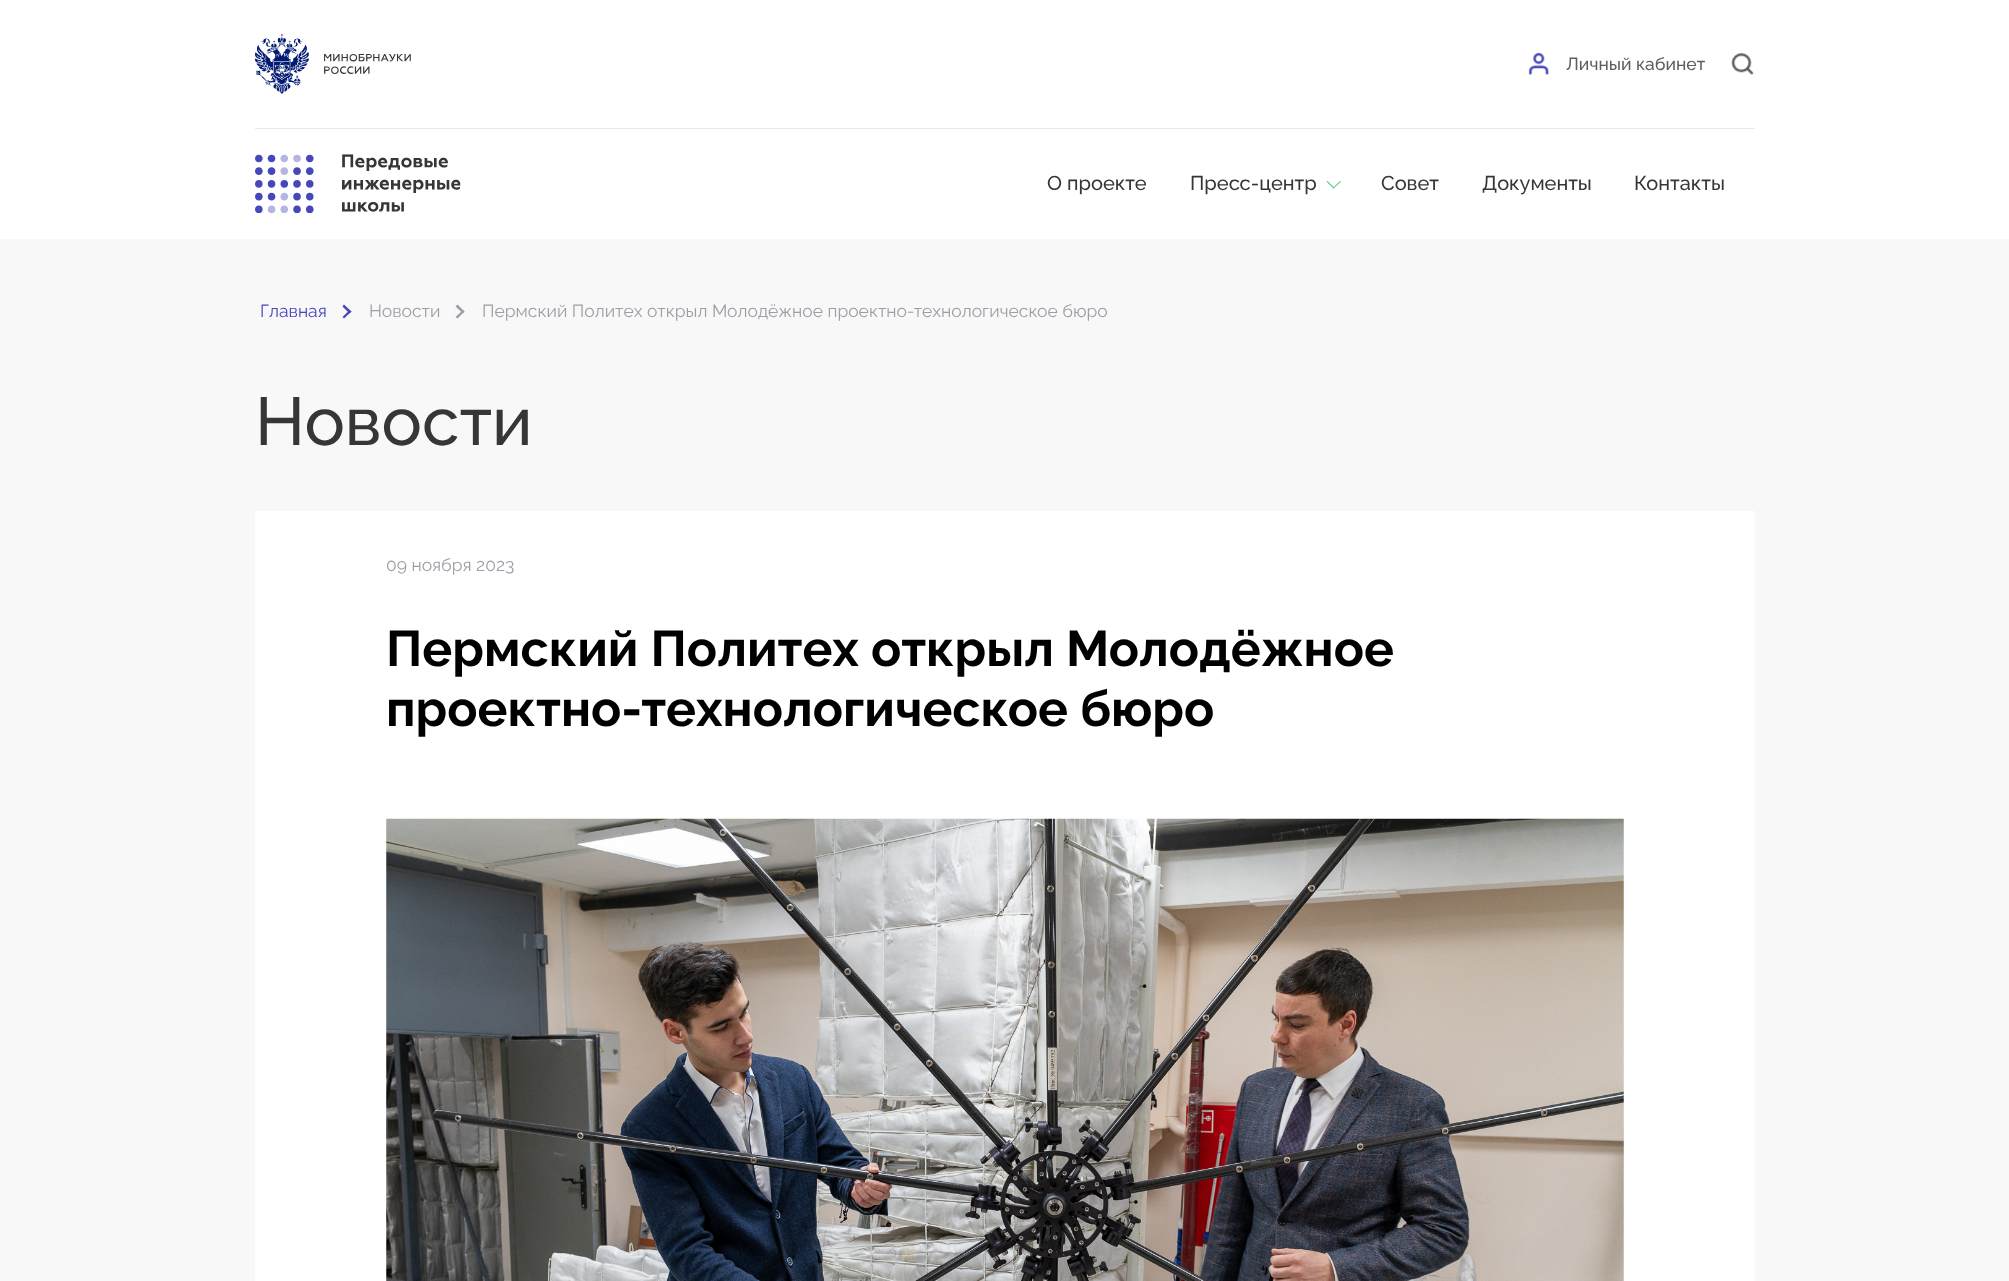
<?xml version="1.0" encoding="UTF-8"?>
<svg xmlns="http://www.w3.org/2000/svg" xmlns:xlink="http://www.w3.org/1999/xlink" width="2009" height="1281">
  <rect width="100%" height="100%" fill="#f8f8f8" />
  <rect width="2009" height="239" fill="#ffffff" />
  <rect x="255" y="128" width="1500" height="1" fill="#e7e9ea" />
  <image x="255" y="34" width="156" height="60" xlink:href="image1.png" />
  <image x="1528" y="52" width="21" height="24" xlink:href="image2.png" />
  <image x="1731" y="53" width="23" height="22" xlink:href="image3.png" />
  <image x="255" y="154" width="206" height="60" xlink:href="image4.png" />
  <path d="M 1340 181 l 1 0.5 l -7.5 7 l -0.5 -0.5 z" fill="#3fcc71" />
  <path d="M 1327.5 181 l 7 7 l -1 0.5 l -7 -7 z" fill="#3fcc71" />
  <path d="M 344 304.5 l 7.5 7 l -2 2 l -7 -7 z" fill="#4547bb" />
  <path d="M 349.5 310 l 2 1.5 l -7.5 7 l -1.5 -1.5 z" fill="#4547bb" />
  <path d="M 457.5 304.5 l 7 7 l -1.5 2 l -7.5 -7 z" fill="#9b9fa5" />
  <path d="M 463 310 l 1.5 1.5 l -7 7 l -2 -1.5 z" fill="#9b9fa5" />
  <rect x="255" y="511" width="1500" height="770" fill="#ffffff" />
  <image x="386" y="818" width="1238" height="463" xlink:href="image5.png" />
  <text x="1566" y="70" style="font-family: Raleway; font-size: 17.5px; font-weight: 500; fill: #5e5e5e">Личный кабинет</text>
  <text x="1047" y="190" style="font-family: Raleway; font-size: 20px; font-weight: 500; fill: #363636">О проекте</text>
  <text x="1190" y="190" style="font-family: Raleway; font-size: 20px; font-weight: 500; fill: #363636">Пресс-центр</text>
  <text x="1381" y="190" style="font-family: Raleway; font-size: 20px; font-weight: 500; fill: #363636">Совет</text>
  <text x="1482" y="190" style="font-family: Raleway; font-size: 20px; font-weight: 500; fill: #363636">Документы</text>
  <text x="1634" y="190" style="font-family: Raleway; font-size: 20px; font-weight: 500; fill: #363636">Контакты</text>
  <text x="260" y="317" style="font-family: Raleway; font-size: 17.5px; fill: #4547bb">Главная</text>
  <text x="369" y="317" style="font-family: Raleway; font-size: 17.5px; fill: #9b9fa5">Новости</text>
  <text x="482" y="317" style="font-family: Raleway; font-size: 17.5px; fill: #9b9fa5">Пермский Политех открыл Молодёжное проектно-технологическое бюро</text>
  <text x="255" y="445" style="font-family: Raleway; font-size: 67.5px; font-weight: 500; fill: #363636">Новости</text>
  <text x="386" y="571" style="font-family: Raleway; font-size: 17.5px; fill: #9b9fa5">09 ноября 2023</text>
  <text x="386" y="666" style="font-family: Raleway; font-size: 50px; font-weight: bold; fill: #000000">Пермский Политех открыл Молодёжное</text>
  <text x="386" y="726" style="font-family: Raleway; font-size: 50px; font-weight: bold; fill: #000000">проектно-технологическое бюро</text>
</svg>
